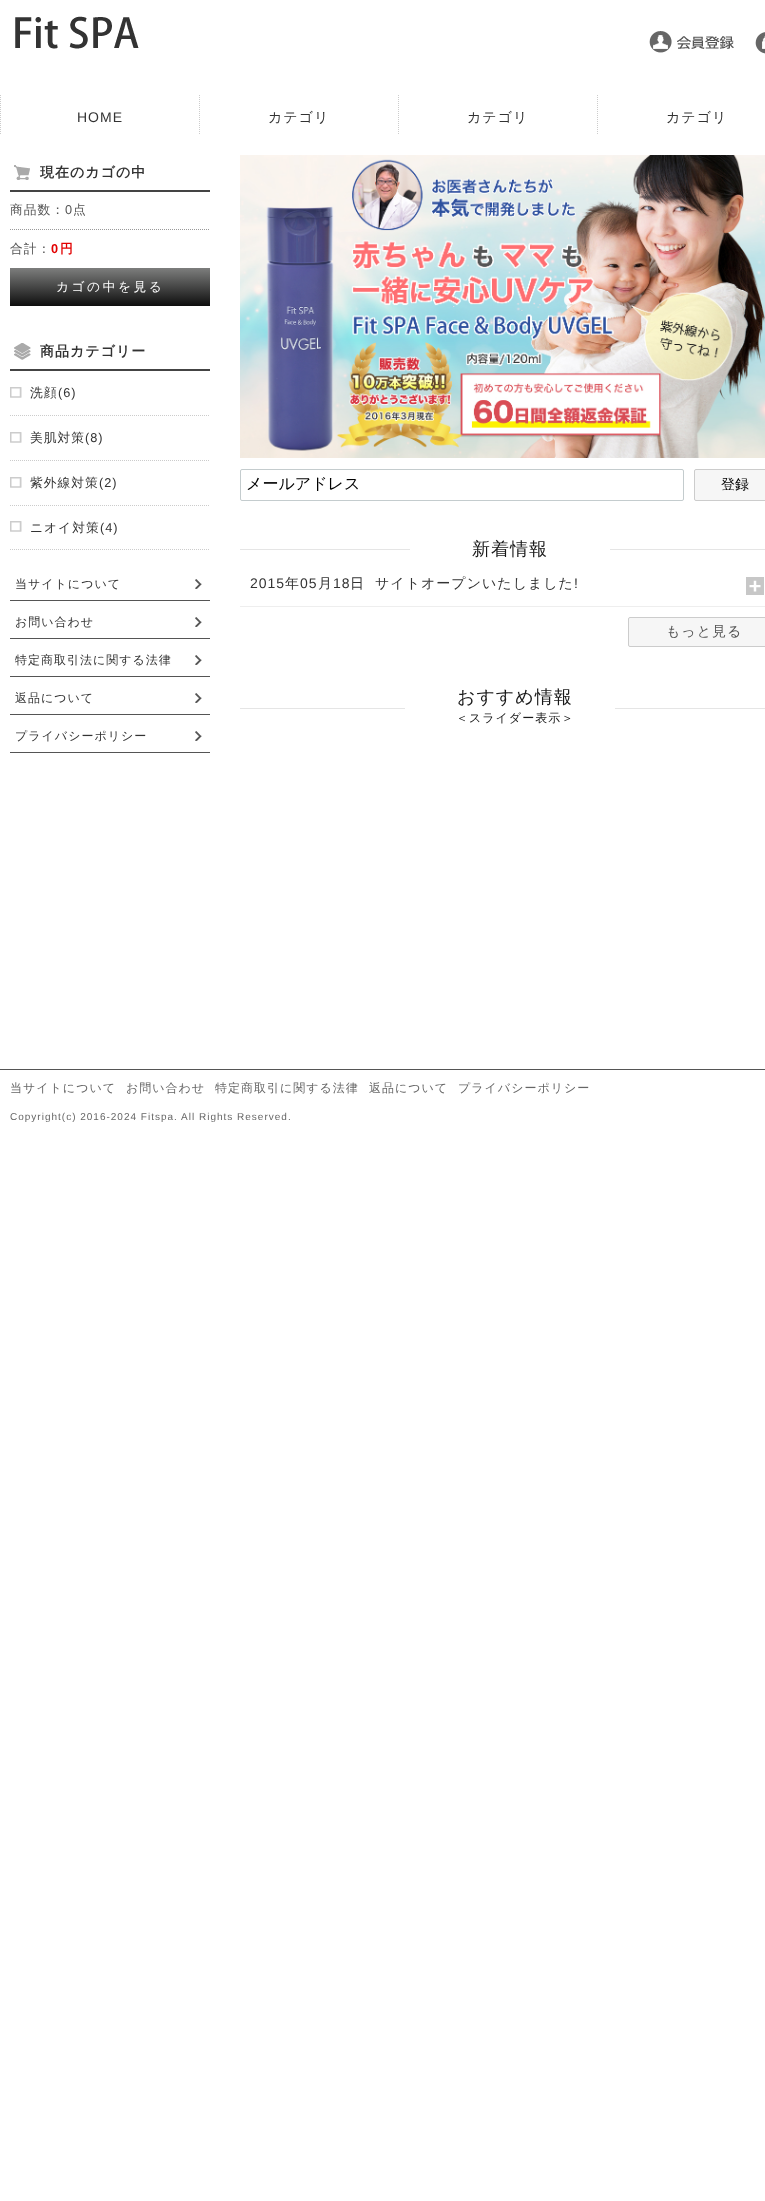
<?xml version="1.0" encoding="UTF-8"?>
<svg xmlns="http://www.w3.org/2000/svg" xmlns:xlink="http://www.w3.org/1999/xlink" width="765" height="2201">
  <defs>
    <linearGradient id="g1" gradientUnits="userSpaceOnUse" x1="110" y1="268" x2="110" y2="306"><stop offset="0" stop-color="#7d7e7d" /><stop offset="1" stop-color="#0e0e0e" /></linearGradient>
  </defs>
  <rect width="100%" height="100%" fill="#ffffff" />
  <image x="15" y="16" width="124" height="33" xlink:href="image1.png" />
  <image x="649" y="31" width="85" height="22" xlink:href="image2.png" />
  <image x="755" y="32" width="10" height="22" xlink:href="image3.png" />
  <path d="M 199.5 95 v 40" fill="none" stroke="#cccccc" stroke-dasharray="1 1" />
  <path d="M 0.5 95 v 40" fill="none" stroke="#cccccc" stroke-dasharray="1 1" />
  <path d="M 597.5 95 v 40" fill="none" stroke="#cccccc" stroke-dasharray="1 1" />
  <path d="M 398.5 95 v 40" fill="none" stroke="#cccccc" stroke-dasharray="1 1" />
  <rect x="10" y="190" width="200" height="2" fill="#444444" />
  <image x="14" y="165" width="16" height="15" xlink:href="image4.png" />
  <path d="M 10 229.5 h 200" fill="none" stroke="#999999" stroke-dasharray="1 1" />
  <rect x="10" y="268" width="200" height="38" fill="url(#g1)" />
  <rect x="10" y="369" width="200" height="2" fill="#444444" />
  <image x="14" y="343" width="17" height="17" xlink:href="image5.png" />
  <path d="M 10 415.5 h 200" fill="none" stroke="#cccccc" stroke-dasharray="1 1" />
  <image x="10" y="387" width="12" height="11" xlink:href="image6.png" />
  <path d="M 10 460.5 h 200" fill="none" stroke="#cccccc" stroke-dasharray="1 1" />
  <image x="10" y="432" width="12" height="11" xlink:href="image6.png" />
  <path d="M 10 505.5 h 200" fill="none" stroke="#cccccc" stroke-dasharray="1 1" />
  <image x="10" y="477" width="12" height="11" xlink:href="image6.png" />
  <path d="M 10 549.5 h 200" fill="none" stroke="#cccccc" stroke-dasharray="1 1" />
  <image x="10" y="521" width="12" height="11" xlink:href="image6.png" />
  <rect x="10" y="600" width="200" height="1" fill="#555555" />
  <image x="195" y="579" width="7" height="10" xlink:href="image7.png" />
  <rect x="10" y="638" width="200" height="1" fill="#555555" />
  <image x="195" y="617" width="7" height="10" xlink:href="image7.png" />
  <rect x="10" y="676" width="200" height="1" fill="#555555" />
  <image x="195" y="655" width="7" height="10" xlink:href="image7.png" />
  <rect x="10" y="714" width="200" height="1" fill="#555555" />
  <image x="195" y="693" width="7" height="10" xlink:href="image7.png" />
  <rect x="10" y="752" width="200" height="1" fill="#555555" />
  <image x="195" y="731" width="7" height="10" xlink:href="image7.png" />
  <image x="240" y="155" width="525" height="303" xlink:href="image8.png" />
  <rect x="240.5" y="469.5" width="443" height="31" rx="1.5" fill="none" stroke="#c4ccce" />
  <rect x="694.5" y="469.5" width="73" height="31" rx="1.5" fill="#f6f6f6" stroke="#cccccc" />
  <rect x="240" y="549" width="525" height="1" fill="#e5e5e5" />
  <rect x="410" y="549" width="200" height="1" fill="#ffffff" />
  <rect x="240" y="606" width="525" height="1" fill="#eeeeee" />
  <image x="746" y="577" width="18" height="18" xlink:href="image9.png" />
  <rect x="628.5" y="617.5" width="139" height="29" rx="1.5" fill="#f6f6f6" stroke="#cccccc" />
  <rect x="240" y="708" width="525" height="1" fill="#e5e5e5" />
  <rect x="405" y="708" width="210" height="1" fill="#ffffff" />
  <rect y="1069" width="765" height="1" fill="#555555" />
  <text x="77" y="122" style="font-family: Liberation Sans; font-size: 14px; letter-spacing: 1px; fill: #333333">HOME</text>
  <text x="268" y="122" style="font-family: WenQuanYi Zen Hei; font-size: 14px; font-weight: 500; letter-spacing: 1px; fill: #333333">カテゴリ</text>
  <text x="467" y="122" style="font-family: WenQuanYi Zen Hei; font-size: 14px; font-weight: 500; letter-spacing: 1px; fill: #333333">カテゴリ</text>
  <text x="666" y="122" style="font-family: WenQuanYi Zen Hei; font-size: 14px; font-weight: 500; letter-spacing: 1px; fill: #333333">カテゴリ</text>
  <text x="40" y="177" style="font-family: WenQuanYi Zen Hei; font-size: 14px; font-weight: bold; letter-spacing: 1px; fill: #333333">現在のカゴの中</text>
  <text x="10" y="214" style="font-family: WenQuanYi Zen Hei; font-size: 12.75px; font-weight: 500; letter-spacing: 1px; fill: #555555">商品数：</text>
  <text x="65" y="214" style="font-family: Liberation Sans; font-size: 12.75px; letter-spacing: 1px; fill: #555555">0</text>
  <text x="73" y="214" style="font-family: WenQuanYi Zen Hei; font-size: 12.75px; font-weight: 500; letter-spacing: 1px; fill: #555555">点</text>
  <text x="10" y="253" style="font-family: WenQuanYi Zen Hei; font-size: 12.75px; font-weight: 500; letter-spacing: 1px; fill: #555555">合計：</text>
  <text x="51" y="253" style="font-family: Liberation Sans; font-size: 12.75px; font-weight: bold; letter-spacing: 1px; fill: #e20000">0</text>
  <text x="60" y="253" style="font-family: WenQuanYi Zen Hei; font-size: 12.75px; font-weight: bold; letter-spacing: 1px; fill: #e20000">円</text>
  <text x="56" y="291" style="font-family: WenQuanYi Zen Hei; font-size: 12.75px; font-weight: 500; letter-spacing: 2.5px; fill: #ffffff">カゴの中を見る</text>
  <text x="40" y="356" style="font-family: WenQuanYi Zen Hei; font-size: 14px; font-weight: bold; letter-spacing: 1px; fill: #333333">商品カテゴリー</text>
  <text x="30" y="397" style="font-family: WenQuanYi Zen Hei; font-size: 12.75px; font-weight: 500; letter-spacing: 1px; fill: #333333">洗顔</text>
  <text x="58" y="397" style="font-family: Liberation Sans; font-size: 12.75px; letter-spacing: 1px; fill: #333333">(6)</text>
  <text x="30" y="442" style="font-family: WenQuanYi Zen Hei; font-size: 12.75px; font-weight: 500; letter-spacing: 1px; fill: #333333">美肌対策</text>
  <text x="85" y="442" style="font-family: Liberation Sans; font-size: 12.75px; letter-spacing: 1px; fill: #333333">(8)</text>
  <text x="30" y="487" style="font-family: WenQuanYi Zen Hei; font-size: 12.75px; font-weight: 500; letter-spacing: 1px; fill: #333333">紫外線対策</text>
  <text x="99" y="487" style="font-family: Liberation Sans; font-size: 12.75px; letter-spacing: 1px; fill: #333333">(2)</text>
  <text x="30" y="532" style="font-family: WenQuanYi Zen Hei; font-size: 12.75px; font-weight: 500; letter-spacing: 1px; fill: #333333">ニオイ対策</text>
  <text x="100" y="532" style="font-family: Liberation Sans; font-size: 12.75px; letter-spacing: 1px; fill: #333333">(4)</text>
  <text x="15" y="588" style="font-family: WenQuanYi Zen Hei; font-size: 12px; font-weight: 500; letter-spacing: 1px; fill: #333333">当サイトについて</text>
  <text x="15" y="626" style="font-family: WenQuanYi Zen Hei; font-size: 12px; font-weight: 500; letter-spacing: 1px; fill: #333333">お問い合わせ</text>
  <text x="15" y="664" style="font-family: WenQuanYi Zen Hei; font-size: 12px; font-weight: 500; letter-spacing: 1px; fill: #333333">特定商取引法に関する法律</text>
  <text x="15" y="702" style="font-family: WenQuanYi Zen Hei; font-size: 12px; font-weight: 500; letter-spacing: 1px; fill: #333333">返品について</text>
  <text x="15" y="740" style="font-family: WenQuanYi Zen Hei; font-size: 12px; font-weight: 500; letter-spacing: 1px; fill: #333333">プライバシーポリシー</text>
  <text x="246" y="489" style="font-family: WenQuanYi Zen Hei; font-size: 16px; font-weight: 500; fill: #000000">メールアドレス</text>
  <text x="721" y="489" style="font-family: WenQuanYi Zen Hei; font-size: 14px; font-weight: 500; fill: #000000">登録</text>
  <text x="472" y="555" style="font-family: WenQuanYi Zen Hei; font-size: 18px; font-weight: 500; letter-spacing: 1px; fill: #191919">新着情報</text>
  <text x="250" y="588" style="font-family: Liberation Sans; font-size: 14px; letter-spacing: 1px; fill: #333333">2015</text>
  <text x="285" y="588" style="font-family: WenQuanYi Zen Hei; font-size: 14px; font-weight: 500; letter-spacing: 1px; fill: #333333">年</text>
  <text x="300" y="588" style="font-family: Liberation Sans; font-size: 14px; letter-spacing: 1px; fill: #333333">05</text>
  <text x="318" y="588" style="font-family: WenQuanYi Zen Hei; font-size: 14px; font-weight: 500; letter-spacing: 1px; fill: #333333">月</text>
  <text x="333" y="588" style="font-family: Liberation Sans; font-size: 14px; letter-spacing: 1px; fill: #333333">18</text>
  <text x="350" y="588" style="font-family: WenQuanYi Zen Hei; font-size: 14px; font-weight: 500; letter-spacing: 1px; fill: #333333">日</text>
  <text x="375" y="588" style="font-family: WenQuanYi Zen Hei; font-size: 14px; font-weight: 500; letter-spacing: 1px; fill: #333333">サイトオープンいたしました</text>
  <text x="574" y="588" style="font-family: Liberation Sans; font-size: 14px; letter-spacing: 1px; fill: #333333">!</text>
  <text x="666" y="636" style="font-family: WenQuanYi Zen Hei; font-size: 14px; font-weight: 500; letter-spacing: 1px; fill: #555555">もっと見る</text>
  <text x="457" y="703" style="font-family: WenQuanYi Zen Hei; font-size: 18px; font-weight: 500; letter-spacing: 1px; fill: #191919">おすすめ情報</text>
  <text x="456" y="722" style="font-family: WenQuanYi Zen Hei; font-size: 12px; font-weight: 500; letter-spacing: 1px; fill: #191919">＜スライダー表示＞</text>
  <text x="10" y="1092" style="font-family: WenQuanYi Zen Hei; font-size: 12px; font-weight: 500; letter-spacing: 1px; fill: #666666">当サイトについて</text>
  <text x="126" y="1092" style="font-family: WenQuanYi Zen Hei; font-size: 12px; font-weight: 500; letter-spacing: 1px; fill: #666666">お問い合わせ</text>
  <text x="215" y="1092" style="font-family: WenQuanYi Zen Hei; font-size: 12px; font-weight: 500; letter-spacing: 1px; fill: #666666">特定商取引に関する法律</text>
  <text x="369" y="1092" style="font-family: WenQuanYi Zen Hei; font-size: 12px; font-weight: 500; letter-spacing: 1px; fill: #666666">返品について</text>
  <text x="458" y="1092" style="font-family: WenQuanYi Zen Hei; font-size: 12px; font-weight: 500; letter-spacing: 1px; fill: #666666">プライバシーポリシー</text>
  <text x="10" y="1120" style="font-family: Liberation Sans; font-size: 10px; letter-spacing: 1px; fill: #666666">Copyright(c) 2016-2024 Fitspa. All Rights Reserved.</text>
</svg>
